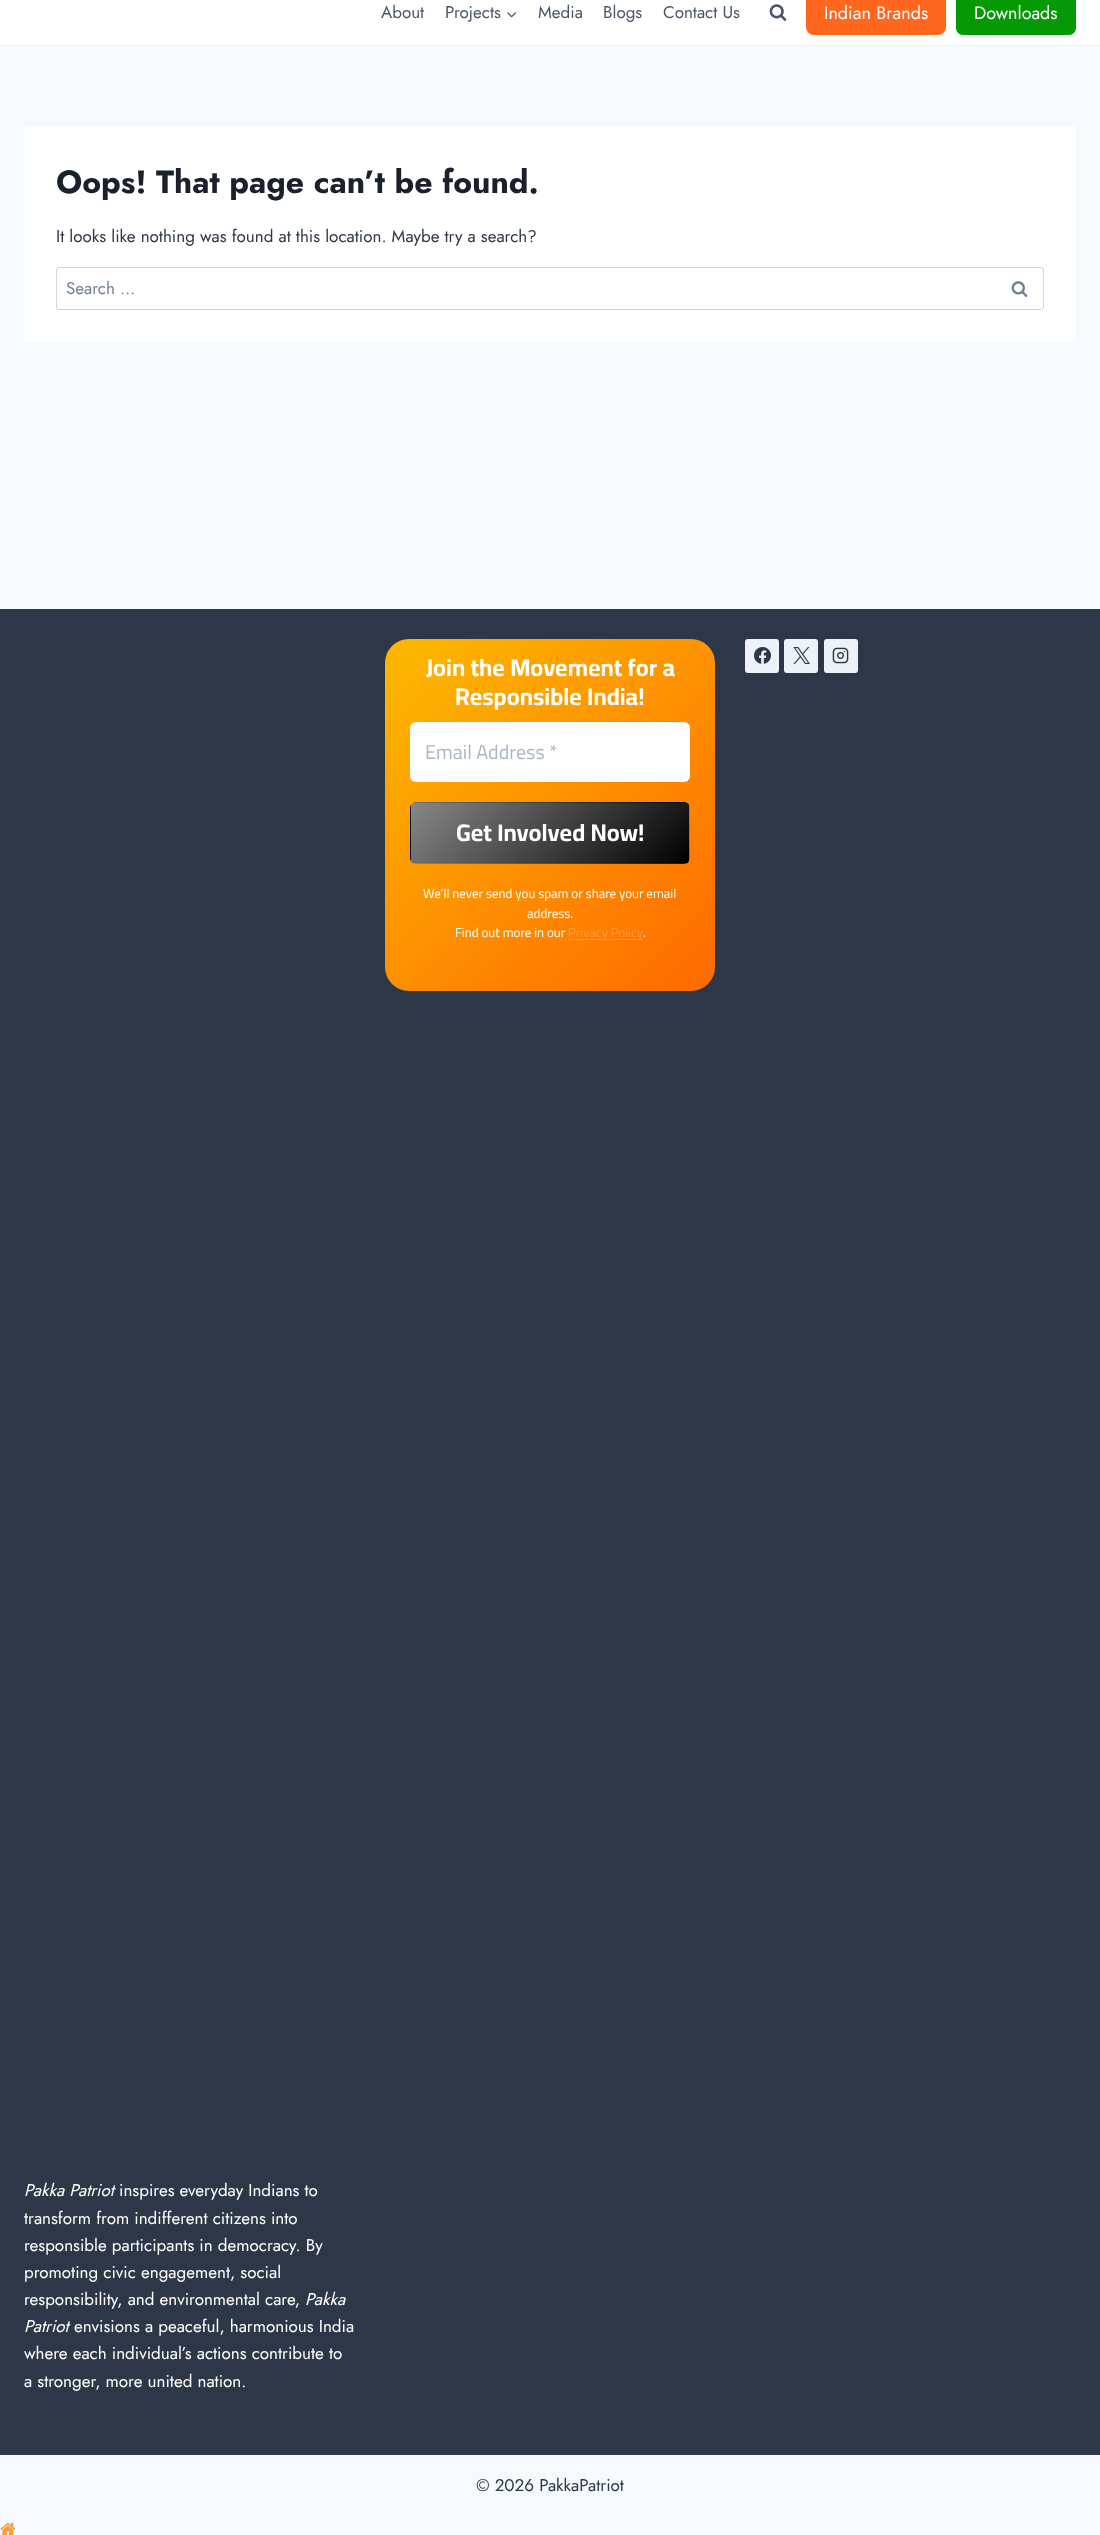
<?xml version="1.0" encoding="UTF-8"?>
<svg xmlns="http://www.w3.org/2000/svg" xmlns:xlink="http://www.w3.org/1999/xlink" width="1100" height="2535">
  <defs>
    <linearGradient id="g1" gradientUnits="userSpaceOnUse" x1="380" y1="645" x2="721" y2="986"><stop offset="0" stop-color="#fcb900" /><stop offset="1" stop-color="#ff6900" /></linearGradient>
    <clipPath id="clip1"><rect x="410" y="802" width="280" height="62" rx="6" /></clipPath>
    <linearGradient id="g2" gradientUnits="userSpaceOnUse" x1="466" y1="689" x2="635" y2="858"><stop offset="0" stop-color="#878787" /><stop offset="1" stop-color="#000000" /></linearGradient>
    <linearGradient id="g3" gradientUnits="userSpaceOnUse" x1="188" y1="749" x2="357" y2="918"><stop offset="0" stop-color="#878787" /><stop offset="1" stop-color="#000000" /></linearGradient>
    <linearGradient id="g4" gradientUnits="userSpaceOnUse" x1="466" y1="749" x2="635" y2="918"><stop offset="0" stop-color="#878787" /><stop offset="1" stop-color="#000000" /></linearGradient>
    <linearGradient id="g5" gradientUnits="userSpaceOnUse" x1="744" y1="749" x2="913" y2="918"><stop offset="0" stop-color="#878787" /><stop offset="1" stop-color="#000000" /></linearGradient>
    <linearGradient id="g6" gradientUnits="userSpaceOnUse" x1="466" y1="809" x2="635" y2="978"><stop offset="0" stop-color="#878787" /><stop offset="1" stop-color="#000000" /></linearGradient>
  </defs>
  <rect width="100%" height="100%" fill="#f7fafc" />
  <rect width="1100" height="45" fill="#ffffff" />
  <rect y="45" width="1100" height="1" fill="#edf2f7" />
  <image x="507" y="12" width="10" height="6" xlink:href="image1.png" />
  <image x="769" y="4" width="18" height="17" xlink:href="image2.png" />
  <rect x="806" y="-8" width="140" height="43" rx="8" fill="#ff671f" />
  <rect x="956" y="-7" width="120" height="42" rx="7" fill="#069906" />
  <rect x="24" y="126" width="1052" height="216" fill="#ffffff" />
  <rect x="56.5" y="267.5" width="987" height="42" rx="2.5" fill="none" stroke="#cbd5e0" />
  <image x="1011" y="281" width="17" height="16" xlink:href="image3.png" />
  <rect y="609" width="1100" height="1846" fill="#2d3748" />
  <rect x="385" y="639" width="330" height="352" rx="24" fill="url(#g1)" />
  <rect x="410" y="722" width="280" height="60" rx="6" fill="#ffffff" />
  <g clip-path="url(#clip1)">
    <rect x="411" y="802" width="278" height="1" fill="url(#g2)" />
    <rect x="410" y="803" width="1" height="60" fill="url(#g3)" />
    <rect x="411" y="803" width="278" height="60" fill="url(#g4)" />
    <rect x="689" y="803" width="1" height="60" fill="url(#g5)" />
    <rect x="411" y="863" width="278" height="1" fill="url(#g6)" />
  </g>
  <rect x="568" y="939" width="75" height="1" fill="#ff9a39" />
  <rect x="745" y="639" width="34" height="34" rx="3" fill="#edf2f7" />
  <image x="754" y="647" width="17" height="17" xlink:href="image4.png" />
  <rect x="784" y="639" width="34" height="34" rx="3" fill="#edf2f7" />
  <image x="793" y="647" width="17" height="17" xlink:href="image5.png" />
  <rect x="824" y="639" width="34" height="34" rx="3" fill="#edf2f7" />
  <image x="832" y="647" width="17" height="17" xlink:href="image6.png" />
  <image x="0" y="2522" width="16" height="13" xlink:href="image7.png" />
  <text x="381" y="18" style="font-family: Jost; font-size: 17px; fill: #4a5568">About</text>
  <text x="445" y="18" style="font-family: Jost; font-size: 17px; fill: #4a5568">Projects</text>
  <text x="538" y="18" style="font-family: Jost; font-size: 17px; fill: #4a5568">Media</text>
  <text x="603" y="18" style="font-family: Jost; font-size: 17px; fill: #4a5568">Blogs</text>
  <text x="663" y="18" style="font-family: Jost; font-size: 17px; fill: #4a5568">Contact Us</text>
  <text x="824" y="19" style="font-family: Jost; font-size: 18px; fill: #ffffff">Indian Brands</text>
  <text x="974" y="19" style="font-family: Jost; font-size: 18px; fill: #ffffff">Downloads</text>
  <text x="56" y="193" style="font-family: Jost; font-size: 32px; font-weight: bold; fill: #1a202c">Oops! That page can’t be found.</text>
  <text x="56" y="242" style="font-family: Jost; font-size: 17px; fill: #2d3748">It looks like nothing was found at this location. Maybe try a search?</text>
  <text x="66" y="294" style="font-family: Jost; font-size: 17px; fill: #718096">Search …</text>
  <text x="426" y="676" style="font-family: Cairo; font-size: 24px; font-weight: bold; fill: #ffffff">Join the Movement for a</text>
  <text x="455" y="705" style="font-family: Cairo; font-size: 24px; font-weight: bold; fill: #ffffff">Responsible India!</text>
  <text x="425" y="759" style="font-family: Cairo; font-size: 20px; fill: #abb8c3">Email Address *</text>
  <text x="456" y="841" style="font-family: Cairo; font-size: 24px; font-weight: bold; fill: #ffffff">Get Involved Now!</text>
  <text x="423" y="898" style="font-family: Cairo; font-size: 13px; fill: #ffffff">We’ll never send you spam or share your email</text>
  <text x="527" y="918" style="font-family: Cairo; font-size: 13px; fill: #ffffff">address.</text>
  <text x="455" y="937" style="font-family: Cairo; font-size: 13px; fill: #ffffff">Find out more in our</text>
  <text x="568" y="937" style="font-family: Cairo; font-size: 13px; fill: #ff9a39">Privacy Policy</text>
  <text x="643" y="937" style="font-family: Cairo; font-size: 13px; fill: #ffffff">.</text>
  <text x="24" y="2196" style="font-family: Jost; font-size: 17px; font-style: italic; fill: #ffffff">Pakka Patriot</text>
  <text x="119" y="2196" style="font-family: Jost; font-size: 17px; fill: #ffffff">inspires everyday Indians to</text>
  <text x="24" y="2224" style="font-family: Jost; font-size: 17px; fill: #ffffff">transform from indifferent citizens into</text>
  <text x="24" y="2251" style="font-family: Jost; font-size: 17px; fill: #ffffff">responsible participants in democracy. By</text>
  <text x="24" y="2278" style="font-family: Jost; font-size: 17px; fill: #ffffff">promoting civic engagement, social</text>
  <text x="24" y="2305" style="font-family: Jost; font-size: 17px; fill: #ffffff">responsibility, and environmental care,</text>
  <text x="305" y="2305" style="font-family: Jost; font-size: 17px; font-style: italic; fill: #ffffff">Pakka</text>
  <text x="24" y="2332" style="font-family: Jost; font-size: 17px; font-style: italic; fill: #ffffff">Patriot</text>
  <text x="74" y="2332" style="font-family: Jost; font-size: 17px; fill: #ffffff">envisions a peaceful, harmonious India</text>
  <text x="24" y="2359" style="font-family: Jost; font-size: 17px; fill: #ffffff">where each individual’s actions contribute to</text>
  <text x="24" y="2387" style="font-family: Jost; font-size: 17px; fill: #ffffff">a stronger, more united nation.</text>
  <text x="476" y="2491" style="font-family: Jost; font-size: 17px; fill: #2d3748">© 2026 PakkaPatriot</text>
</svg>
